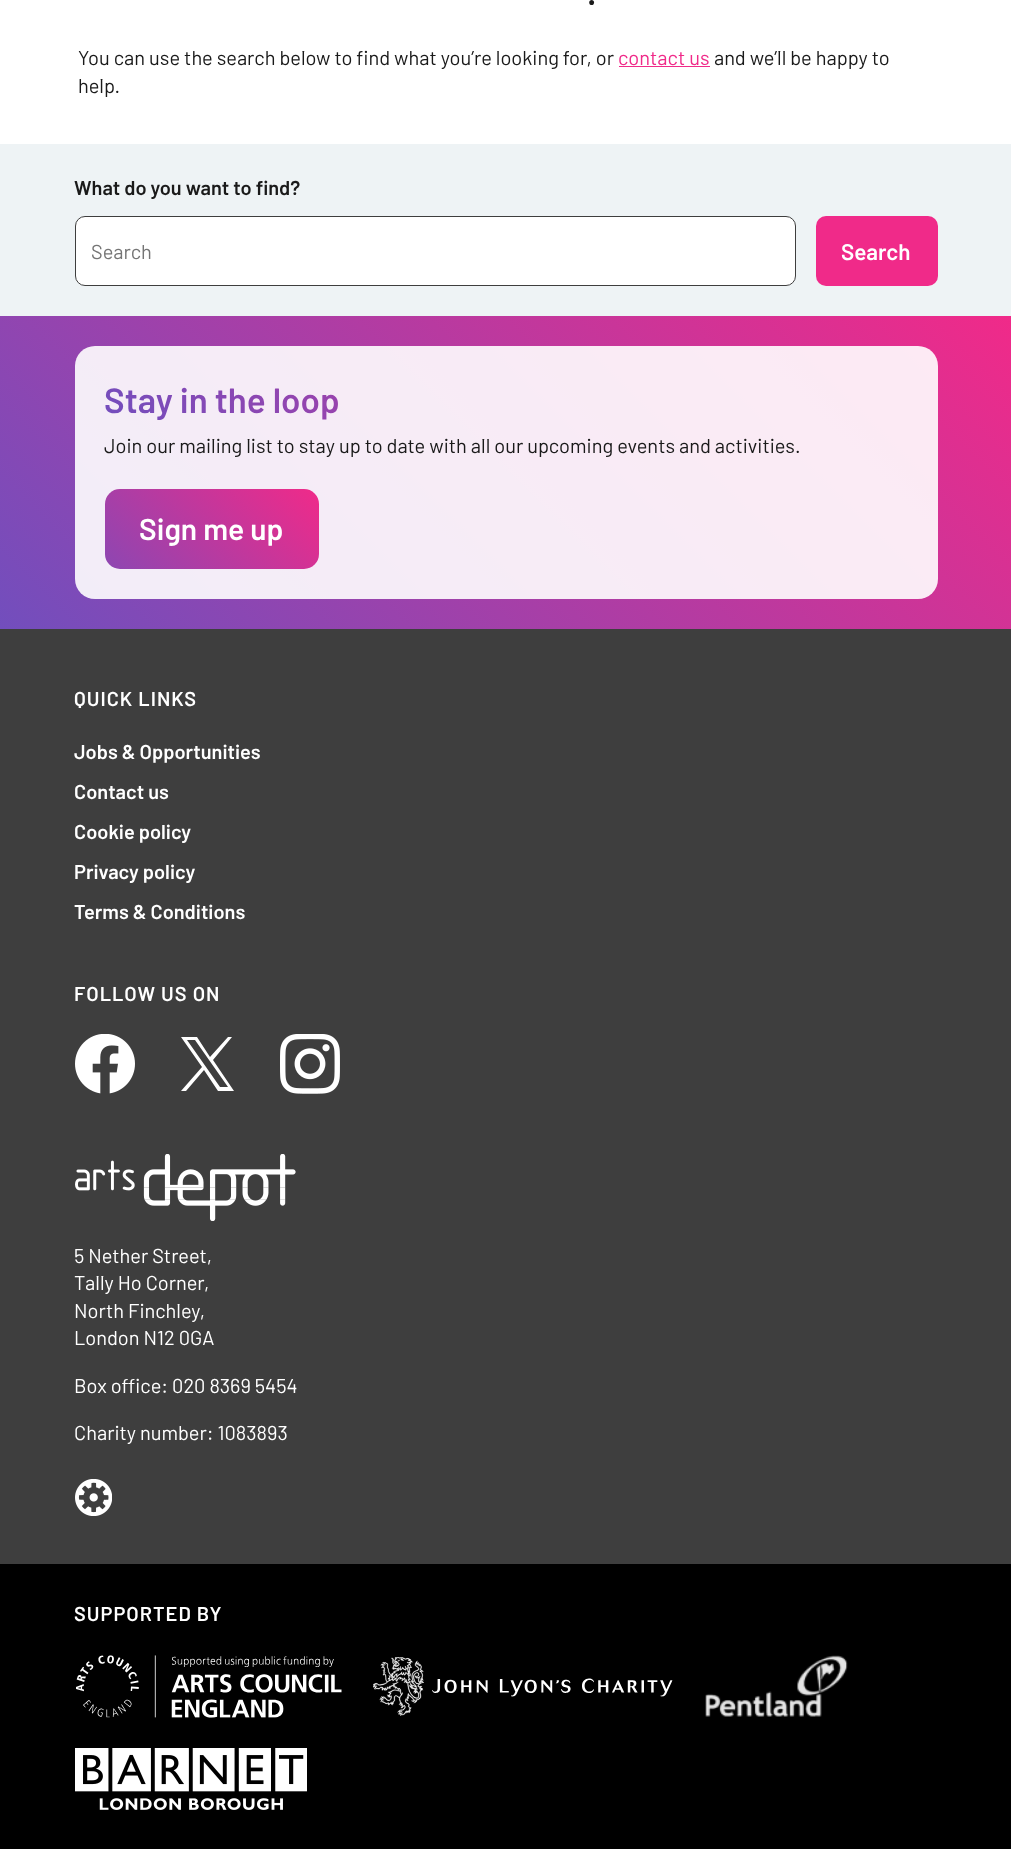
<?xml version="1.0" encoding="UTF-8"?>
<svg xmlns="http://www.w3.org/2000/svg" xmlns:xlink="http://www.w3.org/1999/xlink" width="1011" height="1849">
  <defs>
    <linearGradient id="g1" gradientUnits="userSpaceOnUse" x1="294" y1="611" x2="718" y2="187"><stop offset="0" stop-color="#724ebd" /><stop offset="1" stop-color="#f02a89" /></linearGradient>
    <linearGradient id="g2" gradientUnits="userSpaceOnUse" x1="556" y1="390" x2="834" y2="113"><stop offset="0" stop-color="#000000" /><stop offset="0.3" stop-color="#000000" /><stop offset="0.6" stop-color="#f02a89" /><stop offset="1" stop-color="#f02a89" /></linearGradient>
    <linearGradient id="g3" gradientUnits="userSpaceOnUse" x1="175" y1="803" x2="837" y2="142"><stop offset="0" stop-color="#724ebd" /><stop offset="1" stop-color="#f02a89" /></linearGradient>
    <linearGradient id="g4" gradientUnits="userSpaceOnUse" x1="-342" y1="763" x2="125" y2="295"><stop offset="0" stop-color="#000000" /><stop offset="0.3" stop-color="#000000" /><stop offset="0.6" stop-color="#724ebd" /><stop offset="0.8" stop-color="#b13ca3" /><stop offset="1" stop-color="#f02a89" /></linearGradient>
  </defs>
  <rect width="100%" height="100%" fill="#ffffff" />
  <rect x="619" y="66" width="91" height="1" fill="#f02a89" />
  <rect y="144" width="1011" height="172" fill="#eef3f5" />
  <rect x="75.5" y="216.5" width="720" height="69" rx="9.5" fill="#ffffff" stroke="#3e3e3e" />
  <rect x="816" y="216" width="122" height="70" rx="10" fill="url(#g2)" />
  <rect y="316" width="1011" height="313" fill="url(#g3)" />
  <rect x="75" y="346" width="863" height="253" rx="20" fill="#ffffff" fill-opacity="0.9" />
  <rect x="105" y="489" width="214" height="80" rx="15" fill="url(#g4)" />
  <rect y="629" width="1011" height="935" fill="#3e3e3e" />
  <image x="75" y="1034" width="60" height="60" xlink:href="image1.png" />
  <path d="M 213 1060 l 19 -23 h -4 l -18 20 l -13 -20 h -16 l 21 30 l -21 24 h 5 l 18 -21 l 14 21 h 16 z m -7 7 l -19 -27 h 8 l 33 47 h -8 z" fill="#ffffff" />
  <image x="280" y="1034" width="60" height="60" xlink:href="image2.png" />
  <image x="75" y="1154" width="221" height="67" xlink:href="image3.png" />
  <image x="75" y="1479" width="37" height="37" xlink:href="image4.png" />
  <rect y="1564" width="1011" height="285" fill="#000000" />
  <image x="76" y="1655" width="266" height="63" xlink:href="image5.png" />
  <image x="373" y="1657" width="300" height="59" xlink:href="image6.png" />
  <image x="705" y="1655" width="143" height="62" xlink:href="image7.png" />
  <image x="75" y="1748" width="232" height="62" xlink:href="image8.png" />
  <text x="587" y="5" style="font-family: Barlow; font-size: 35px; font-weight: 600; fill: #1a1a1a">.</text>
  <text x="78" y="65" style="font-family: Barlow; font-size: 20px; fill: #1a1a1a">You can use the search below to find what you’re looking for, or</text>
  <text x="618" y="65" style="font-family: Barlow; font-size: 20px; fill: #f02a89">contact us</text>
  <text x="714" y="65" style="font-family: Barlow; font-size: 20px; fill: #1a1a1a">and we’ll be happy to</text>
  <text x="78" y="93" style="font-family: Barlow; font-size: 20px; fill: #1a1a1a">help.</text>
  <text x="74" y="195" style="font-family: Barlow; font-size: 20px; font-weight: 600; fill: #1a1a1a">What do you want to find?</text>
  <text x="91" y="259" style="font-family: Barlow; font-size: 20px; fill: #757575">Search</text>
  <text x="841" y="260" style="font-family: Barlow; font-size: 22.5px; font-weight: 600; fill: #ffffff">Search</text>
  <text x="104" y="413" style="font-family: Barlow; font-size: 35px; font-weight: 600; fill: url(#g1)">Stay in the loop</text>
  <text x="104" y="453" style="font-family: Barlow; font-size: 20px; fill: #1a1a1a">Join our mailing list to stay up to date with all our upcoming events and activities.</text>
  <text x="139" y="540" style="font-family: Barlow; font-size: 30px; font-weight: 600; fill: #ffffff">Sign me up</text>
  <text x="74" y="706" style="font-family: Barlow; font-size: 20px; font-weight: 600; letter-spacing: 1px; fill: #ffffff">QUICK LINKS</text>
  <text x="74" y="759" style="font-family: Barlow; font-size: 20px; font-weight: 600; fill: #ffffff">Jobs &amp; Opportunities</text>
  <text x="74" y="799" style="font-family: Barlow; font-size: 20px; font-weight: 600; fill: #ffffff">Contact us</text>
  <text x="74" y="839" style="font-family: Barlow; font-size: 20px; font-weight: 600; fill: #ffffff">Cookie policy</text>
  <text x="74" y="879" style="font-family: Barlow; font-size: 20px; font-weight: 600; fill: #ffffff">Privacy policy</text>
  <text x="74" y="919" style="font-family: Barlow; font-size: 20px; font-weight: 600; fill: #ffffff">Terms &amp; Conditions</text>
  <text x="74" y="1001" style="font-family: Barlow; font-size: 20px; font-weight: 600; letter-spacing: 1px; fill: #ffffff">FOLLOW US ON</text>
  <text x="74" y="1263" style="font-family: Barlow; font-size: 20px; fill: #ffffff">5 Nether Street,</text>
  <text x="74" y="1290" style="font-family: Barlow; font-size: 20px; fill: #ffffff">Tally Ho Corner,</text>
  <text x="74" y="1318" style="font-family: Barlow; font-size: 20px; fill: #ffffff">North Finchley,</text>
  <text x="74" y="1345" style="font-family: Barlow; font-size: 20px; fill: #ffffff">London N12 0GA</text>
  <text x="74" y="1393" style="font-family: Barlow; font-size: 20px; fill: #ffffff">Box office: 020 8369 5454</text>
  <text x="74" y="1440" style="font-family: Barlow; font-size: 20px; fill: #ffffff">Charity number: 1083893</text>
  <text x="74" y="1621" style="font-family: Barlow; font-size: 20px; font-weight: 600; letter-spacing: 1px; fill: #ffffff">SUPPORTED BY</text>
</svg>
